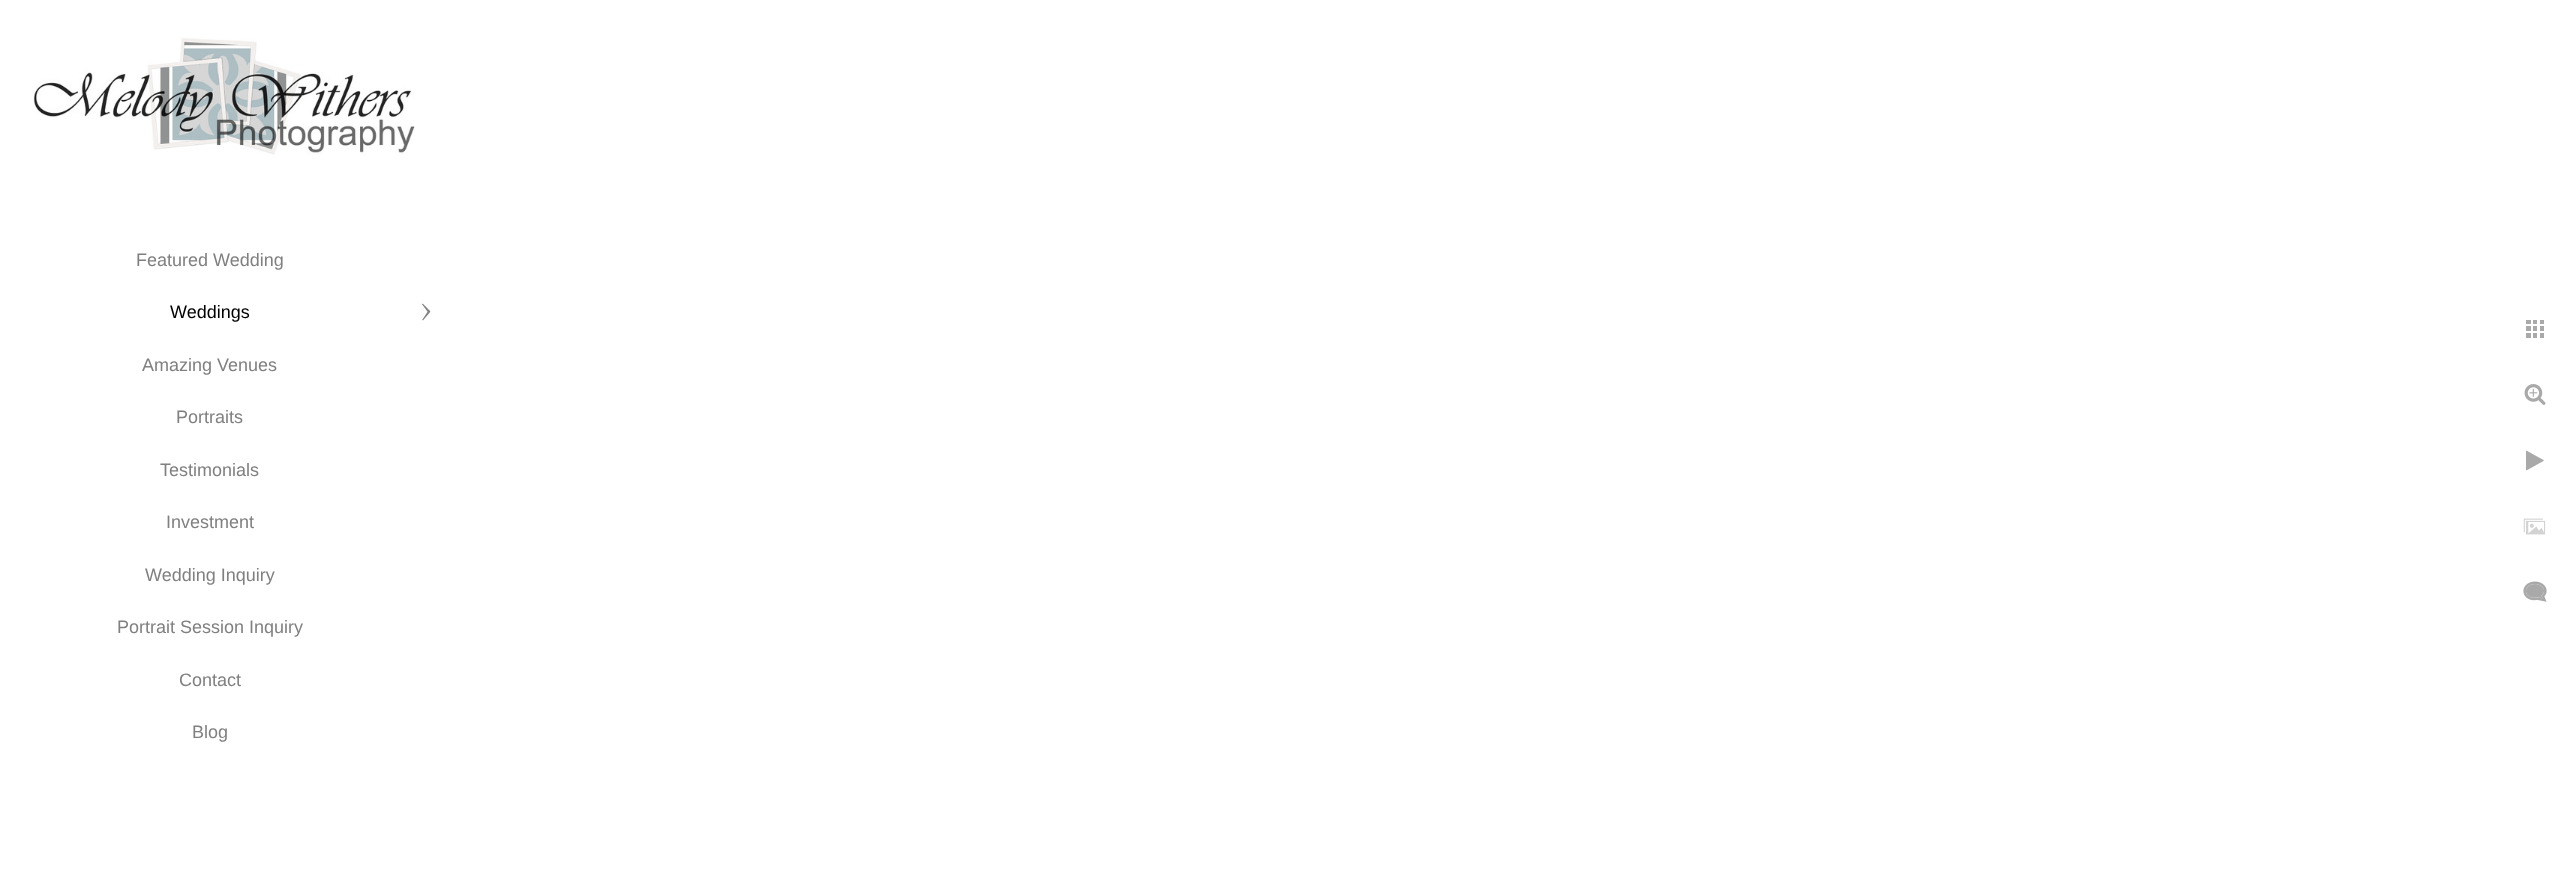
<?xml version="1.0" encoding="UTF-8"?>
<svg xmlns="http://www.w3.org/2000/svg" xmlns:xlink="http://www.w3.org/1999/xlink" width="2575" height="890">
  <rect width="100%" height="100%" fill="#ffffff" />
  <image x="33" y="38" width="382" height="117" xlink:href="image1.png" />
  <image x="422" y="303" width="9" height="18" xlink:href="image2.png" />
  <image x="2526" y="320" width="18" height="18" xlink:href="image3.png" />
  <image x="2524" y="384" width="22" height="21" xlink:href="image4.png" />
  <image x="2526" y="450" width="18" height="21" xlink:href="image5.png" />
  <image x="2523" y="518" width="23" height="17" xlink:href="image6.png" />
  <image x="2523" y="581" width="24" height="21" xlink:href="image7.png" />
  <text x="136" y="266" style="font-family: Liberation Sans; font-size: 18px; fill: #808080">Featured Wedding</text>
  <text x="170" y="318" style="font-family: Liberation Sans; font-size: 18px; fill: #000000">Weddings</text>
  <text x="142" y="371" style="font-family: Liberation Sans; font-size: 18px; fill: #808080">Amazing Venues</text>
  <text x="176" y="423" style="font-family: Liberation Sans; font-size: 18px; fill: #808080">Portraits</text>
  <text x="160" y="476" style="font-family: Liberation Sans; font-size: 18px; fill: #808080">Testimonials</text>
  <text x="166" y="528" style="font-family: Liberation Sans; font-size: 18px; fill: #808080">Investment</text>
  <text x="145" y="581" style="font-family: Liberation Sans; font-size: 18px; fill: #808080">Wedding Inquiry</text>
  <text x="117" y="633" style="font-family: Liberation Sans; font-size: 18px; fill: #808080">Portrait Session Inquiry</text>
  <text x="179" y="686" style="font-family: Liberation Sans; font-size: 18px; fill: #808080">Contact</text>
  <text x="192" y="738" style="font-family: Liberation Sans; font-size: 18px; fill: #808080">Blog</text>
</svg>
